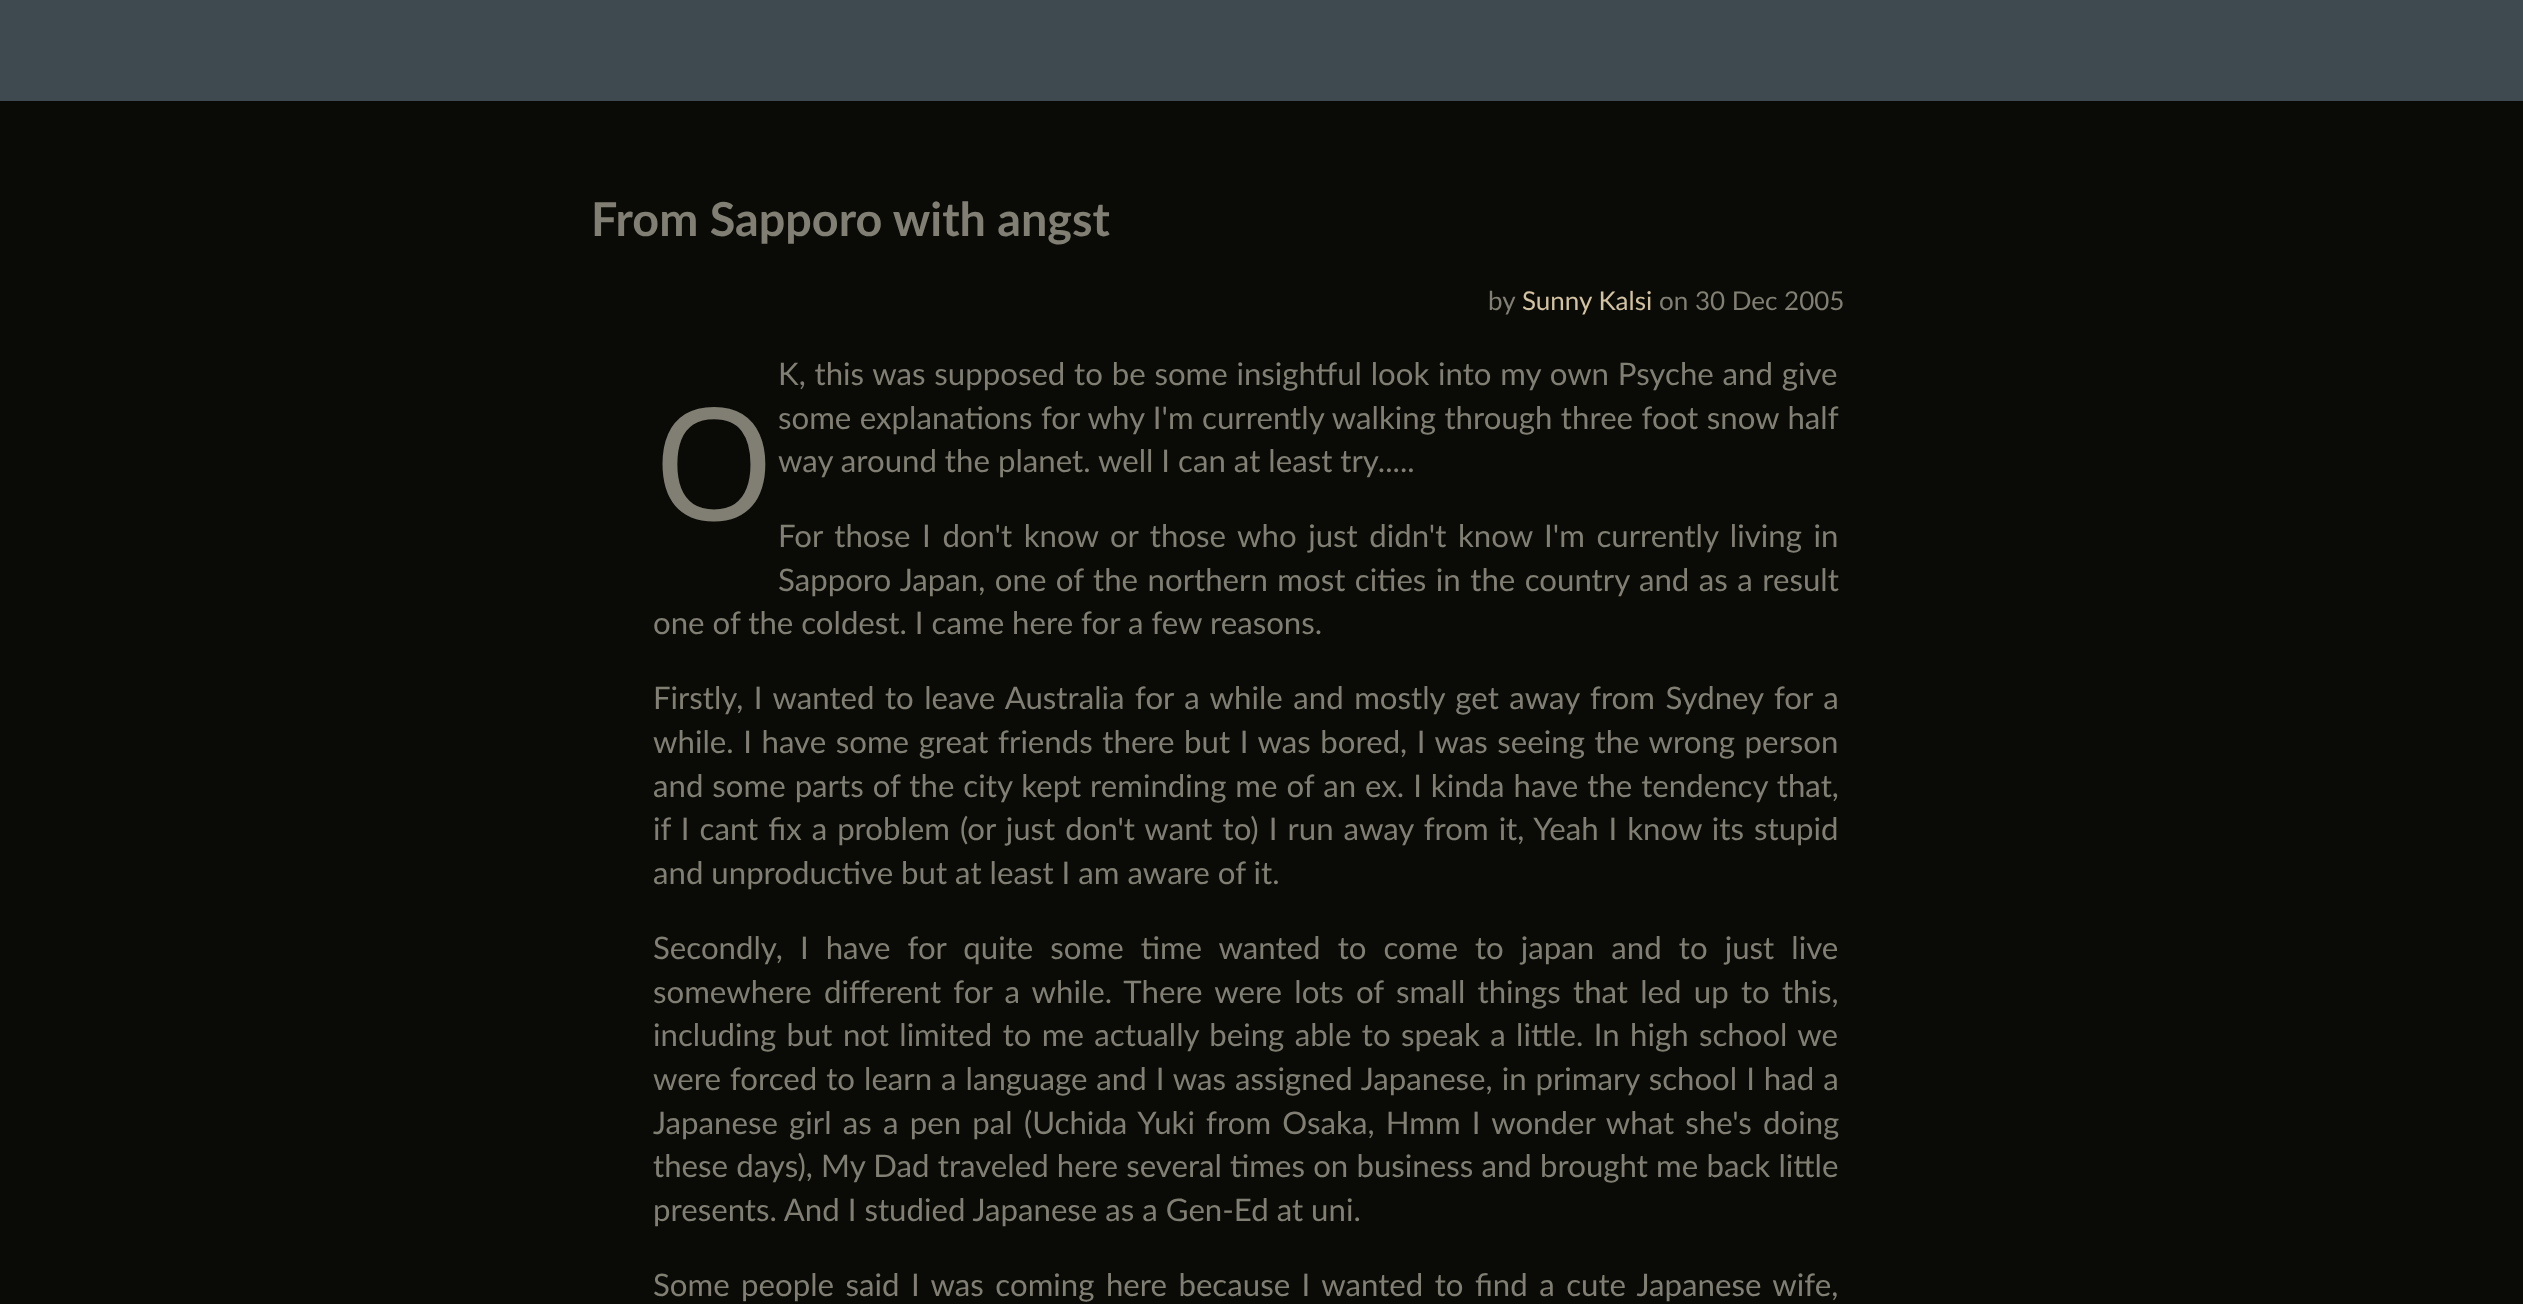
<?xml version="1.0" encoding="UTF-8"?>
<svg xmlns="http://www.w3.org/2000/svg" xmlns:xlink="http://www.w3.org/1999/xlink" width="2523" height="1304">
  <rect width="100%" height="100%" fill="#3f4a50" />
  <rect y="101" width="2523" height="1203" fill="#0a0b06" />
  <text x="591" y="236" style="font-family: Lato; font-size: 46.75px; font-weight: bold; fill: #817f73">From Sapporo with angst</text>
  <text x="1488" y="310" style="font-family: Lato; font-size: 26px; fill: #817f73">by</text>
  <text x="1522" y="310" style="font-family: Lato; font-size: 26px; fill: #d2c2a1">Sunny Kalsi</text>
  <text x="1659" y="310" style="font-family: Lato; font-size: 26px; fill: #817f73">on 30 Dec 2005</text>
  <text x="778" y="385" word-spacing="0.8" style="font-family: Lato; font-size: 31.2px; fill: #817f73">K, this was supposed to be some insightful look into my own Psyche and give</text>
  <text x="653" y="520" style="font-family: Noto Sans; font-size: 156px; fill: #817f73">O</text>
  <text x="778" y="429" word-spacing="0.5" style="font-family: Lato; font-size: 31.2px; fill: #817f73">some explanations for why I'm currently walking through three foot snow half</text>
  <text x="778" y="472" style="font-family: Lato; font-size: 31.2px; fill: #817f73">way around the planet. well I can at least try.....</text>
  <text x="778" y="547" word-spacing="3.6" style="font-family: Lato; font-size: 31.2px; fill: #817f73">For those I don't know or those who just didn't know I'm currently living in</text>
  <text x="778" y="591" word-spacing="1.5" style="font-family: Lato; font-size: 31.2px; fill: #817f73">Sapporo Japan, one of the northern most cities in the country and as a result</text>
  <text x="653" y="634" style="font-family: Lato; font-size: 31.2px; fill: #817f73">one of the coldest. I came here for a few reasons.</text>
  <text x="653" y="709" word-spacing="2.5" style="font-family: Lato; font-size: 31.2px; fill: #817f73">Firstly, I wanted to leave Australia for a while and mostly get away from Sydney for a</text>
  <text x="653" y="753" word-spacing="1.6" style="font-family: Lato; font-size: 31.2px; fill: #817f73">while. I have some great friends there but I was bored, I was seeing the wrong person</text>
  <text x="653" y="797" word-spacing="1" style="font-family: Lato; font-size: 31.2px; fill: #817f73">and some parts of the city kept reminding me of an ex. I kinda have the tendency that,</text>
  <text x="653" y="840" word-spacing="2" style="font-family: Lato; font-size: 31.2px; fill: #817f73">if I cant fix a problem (or just don't want to) I run away from it, Yeah I know its stupid</text>
  <text x="653" y="884" style="font-family: Lato; font-size: 31.2px; fill: #817f73">and unproductive but at least I am aware of it.</text>
  <text x="653" y="959" word-spacing="9.1" style="font-family: Lato; font-size: 31.2px; fill: #817f73">Secondly, I have for quite some time wanted to come to japan and to just live</text>
  <text x="653" y="1003" word-spacing="4.25" style="font-family: Lato; font-size: 31.2px; fill: #817f73">somewhere different for a while. There were lots of small things that led up to this,</text>
  <text x="653" y="1046" word-spacing="2.4" style="font-family: Lato; font-size: 31.2px; fill: #817f73">including but not limited to me actually being able to speak a little. In high school we</text>
  <text x="653" y="1090" word-spacing="1" style="font-family: Lato; font-size: 31.2px; fill: #817f73">were forced to learn a language and I was assigned Japanese, in primary school I had a</text>
  <text x="653" y="1134" word-spacing="3.25" style="font-family: Lato; font-size: 31.2px; fill: #817f73">Japanese girl as a pen pal (Uchida Yuki from Osaka, Hmm I wonder what she's doing</text>
  <text x="653" y="1177" word-spacing="0.25" style="font-family: Lato; font-size: 31.2px; fill: #817f73">these days), My Dad traveled here several times on business and brought me back little</text>
  <text x="653" y="1221" style="font-family: Lato; font-size: 31.2px; fill: #817f73">presents. And I studied Japanese as a Gen-Ed at uni.</text>
  <text x="653" y="1296" word-spacing="3.5" style="font-family: Lato; font-size: 31.2px; fill: #817f73">Some people said I was coming here because I wanted to find a cute Japanese wife,</text>
</svg>
